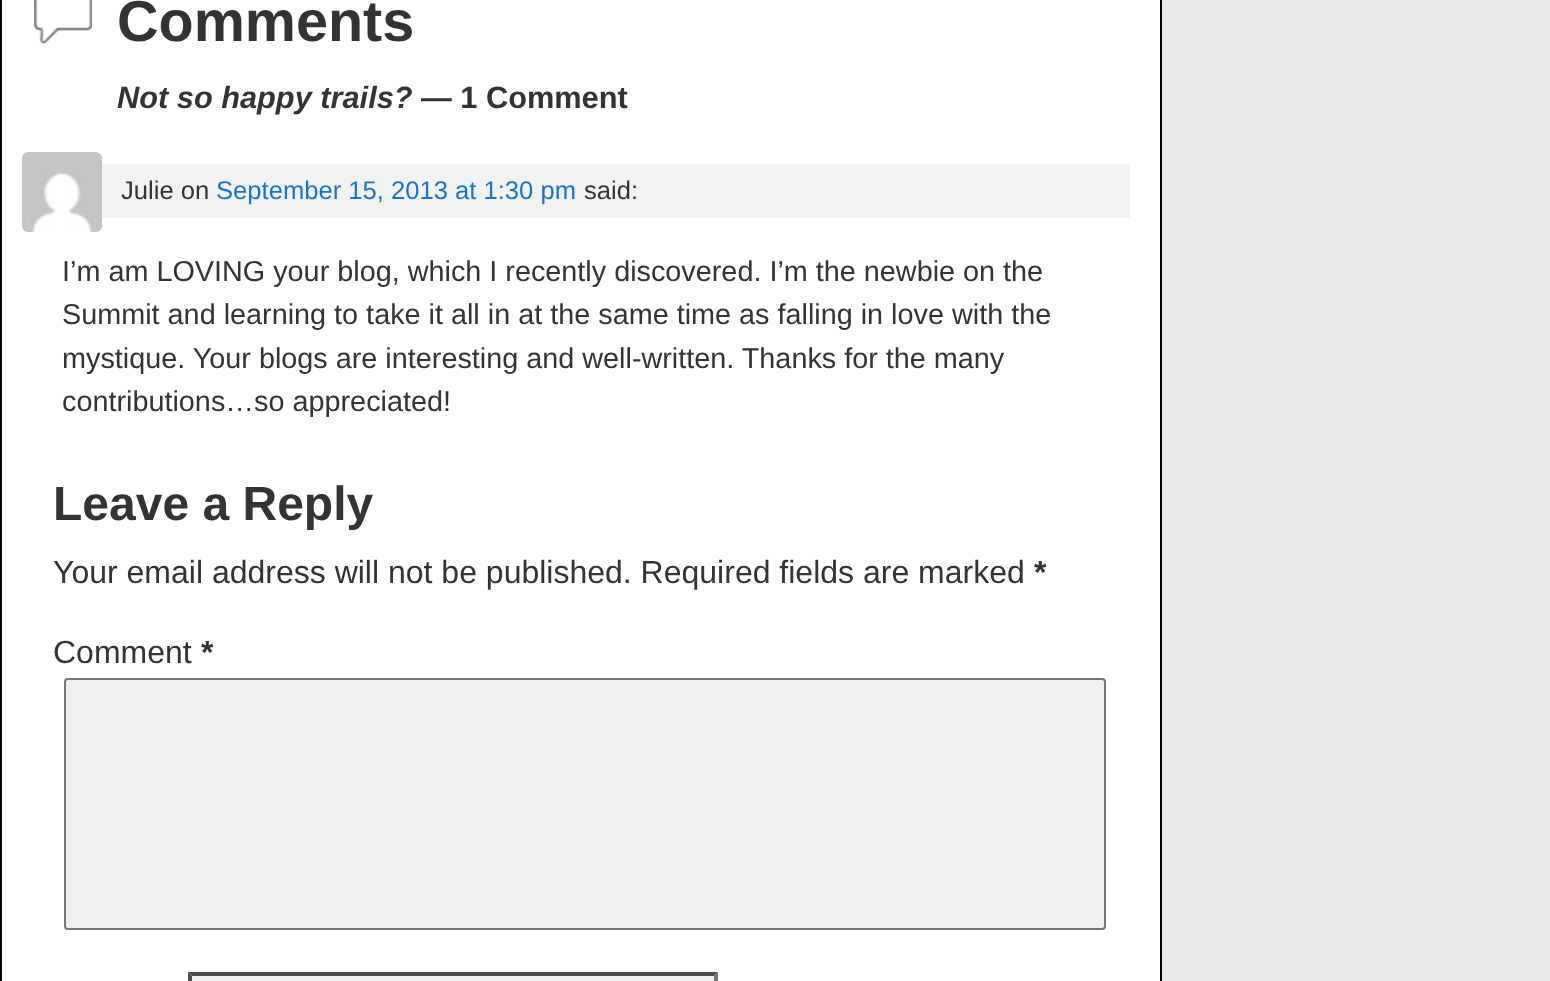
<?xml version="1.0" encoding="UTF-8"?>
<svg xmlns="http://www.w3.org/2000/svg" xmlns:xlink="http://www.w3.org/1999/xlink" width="1550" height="981">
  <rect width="100%" height="100%" fill="#eaeaea" />
  <rect x="1" y="-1" width="1160" height="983" fill="#ffffff" stroke="#000000" stroke-width="2" />
  <image x="34" y="0" width="58" height="44" xlink:href="image1.png" />
  <rect x="102" y="164" width="1028" height="54" fill="#f2f2f2" />
  <image x="22" y="152" width="80" height="80" xlink:href="image2.png" />
  <rect x="65" y="679" width="1040" height="250" rx="3" fill="#f0f0f0" stroke="#767676" stroke-width="2" />
  <rect x="188" y="972" width="530" height="9" fill="#f0f0f0" />
  <path d="M 188 972 h 530 l -4 4 h -522 z" fill="#4f4f4f" />
  <path d="M 718 972 v 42 l -4 -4 v -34 z" fill="#767676" />
  <path d="M 188 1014 v -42 l 4 4 v 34 z" fill="#4f4f4f" />
  <text x="117" y="41" style="font-family: Liberation Sans; font-size: 57.5px; font-weight: bold; fill: #333333">Comments</text>
  <text x="117" y="108" style="font-family: Liberation Sans; font-size: 30.75px; font-weight: bold; font-style: italic; fill: #333333">Not so happy trails?</text>
  <text x="421" y="108" style="font-family: Liberation Sans; font-size: 30.75px; font-weight: bold; fill: #333333">— 1 Comment</text>
  <text x="121" y="199" style="font-family: Liberation Sans; font-size: 25.6px; fill: #333333">Julie on</text>
  <text x="216" y="199" style="font-family: Liberation Sans; font-size: 25.6px; fill: #1e73be">September 15, 2013 at 1:30 pm</text>
  <text x="584" y="199" style="font-family: Liberation Sans; font-size: 25.6px; fill: #333333">said:</text>
  <text x="62" y="281" style="font-family: Liberation Sans; font-size: 28.8px; fill: #333333">I’m am LOVING your blog, which I recently discovered. I’m the newbie on the</text>
  <text x="62" y="324" style="font-family: Liberation Sans; font-size: 28.8px; fill: #333333">Summit and learning to take it all in at the same time as falling in love with the</text>
  <text x="62" y="368" style="font-family: Liberation Sans; font-size: 28.8px; fill: #333333">mystique. Your blogs are interesting and well-written. Thanks for the many</text>
  <text x="62" y="411" style="font-family: Liberation Sans; font-size: 28.8px; fill: #333333">contributions…so appreciated!</text>
  <text x="53" y="520" style="font-family: Liberation Sans; font-size: 48px; font-weight: bold; fill: #333333">Leave a Reply</text>
  <text x="53" y="583" style="font-family: Liberation Sans; font-size: 32px; fill: #333333">Your email address will not be published. Required fields are marked</text>
  <text x="1034" y="583" style="font-family: Liberation Sans; font-size: 32px; font-weight: bold; fill: #333333">*</text>
  <text x="53" y="663" style="font-family: Liberation Sans; font-size: 32px; fill: #333333">Comment</text>
  <text x="201" y="663" style="font-family: Liberation Sans; font-size: 32px; font-weight: bold; fill: #333333">*</text>
</svg>
